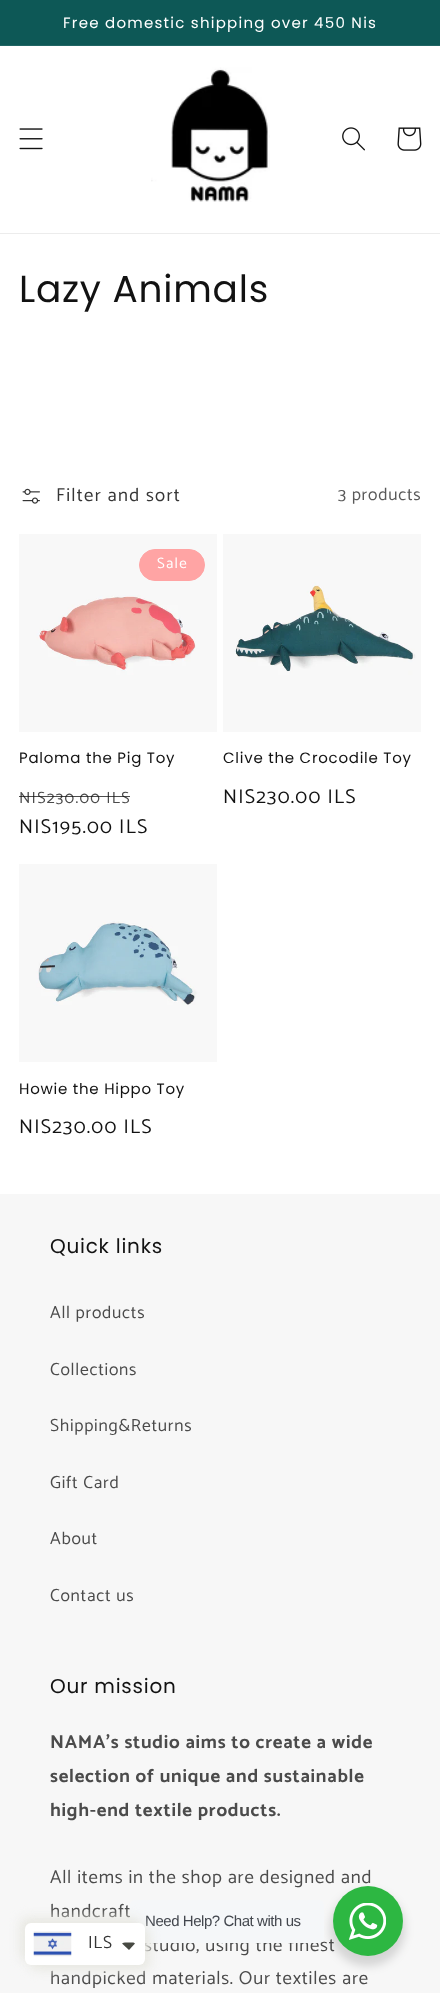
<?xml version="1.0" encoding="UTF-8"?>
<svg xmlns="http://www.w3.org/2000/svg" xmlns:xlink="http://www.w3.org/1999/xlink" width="440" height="1993">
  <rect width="100%" height="100%" fill="#ffffff" />
  <rect width="440" height="45" fill="#0d5856" />
  <rect y="45" width="440" height="1" fill="#206564" />
  <rect y="233" width="440" height="1" fill="#ececec" />
  <image x="19" y="128" width="24" height="22" xlink:href="image1.png" />
  <image x="151" y="67" width="119" height="135" xlink:href="image2.png" />
  <image x="342" y="127" width="23" height="24" xlink:href="image3.png" />
  <image x="397" y="127" width="25" height="24" xlink:href="image4.png" />
  <image x="22" y="488" width="18" height="16" xlink:href="image5.png" />
  <image x="19" y="534" width="198" height="198" xlink:href="image6.png" />
  <rect x="139.5" y="549.5" width="65" height="31" rx="15.5" fill="#ffa4a4" stroke="#ffa4a4" />
  <image x="223" y="534" width="198" height="198" xlink:href="image7.png" />
  <image x="19" y="864" width="198" height="198" xlink:href="image8.png" />
  <rect y="1194" width="440" height="799" fill="#f7f7f7" />
  <rect x="330" y="1891" width="75" height="75" rx="37.5" fill="#000000" fill-opacity="0.14" filter="blur(5px)" />
  <text x="63" y="28" style="font-family: Poppins; font-size: 15px; letter-spacing: 1.25px; fill: #ffffff">Free domestic shipping over 450 Nis</text>
  <text x="19" y="302" style="font-family: Poppins; font-size: 37.5px; letter-spacing: 0.75px; fill: #121212">Lazy Animals</text>
  <text x="56" y="501" style="font-family: Catamaran; font-size: 18.75px; letter-spacing: 1.25px; fill: #363636">Filter and sort</text>
  <text x="338" y="500" style="font-family: Catamaran; font-size: 17.5px; letter-spacing: 0.75px; fill: #595959">3 products</text>
  <text x="157" y="568" style="font-family: Catamaran; font-size: 15px; letter-spacing: 1.25px; fill: #ffffff">Sale</text>
  <text x="19" y="763" style="font-family: Poppins; font-size: 15px; letter-spacing: 0.75px; fill: #121212">Paloma the Pig Toy</text>
  <text x="19" y="803" style="font-family: Catamaran; font-size: 16.25px; letter-spacing: 1.25px; fill: #4b4b4b">NIS230.00 ILS</text>
  <rect x="19" y="796" width="111" height="1" fill="#121212" fill-opacity="0.75" />
  <text x="19" y="833" style="font-family: Catamaran; font-size: 20px; letter-spacing: 1.25px; fill: #121212">NIS195.00 ILS</text>
  <text x="223" y="763" style="font-family: Poppins; font-size: 15px; letter-spacing: 0.75px; fill: #121212">Clive the Crocodile Toy</text>
  <text x="223" y="803" style="font-family: Catamaran; font-size: 20px; letter-spacing: 1.25px; fill: #121212">NIS230.00 ILS</text>
  <text x="19" y="1094" style="font-family: Poppins; font-size: 15px; letter-spacing: 0.75px; fill: #121212">Howie the Hippo Toy</text>
  <text x="19" y="1133" style="font-family: Catamaran; font-size: 20px; letter-spacing: 1.25px; fill: #121212">NIS230.00 ILS</text>
  <text x="50" y="1253" style="font-family: Poppins; font-size: 20px; letter-spacing: 0.75px; fill: #121212">Quick links</text>
  <text x="50" y="1318" style="font-family: Catamaran; font-size: 17.5px; letter-spacing: 0.75px; fill: #4b4b4b">All products</text>
  <text x="50" y="1375" style="font-family: Catamaran; font-size: 17.5px; letter-spacing: 0.75px; fill: #4b4b4b">Collections</text>
  <text x="50" y="1431" style="font-family: Catamaran; font-size: 17.5px; letter-spacing: 0.75px; fill: #4b4b4b">Shipping&amp;Returns</text>
  <text x="50" y="1488" style="font-family: Catamaran; font-size: 17.5px; letter-spacing: 0.75px; fill: #4b4b4b">Gift Card</text>
  <text x="50" y="1544" style="font-family: Catamaran; font-size: 17.5px; letter-spacing: 0.75px; fill: #4b4b4b">About</text>
  <text x="50" y="1601" style="font-family: Catamaran; font-size: 17.5px; letter-spacing: 0.75px; fill: #4b4b4b">Contact us</text>
  <text x="50" y="1693" style="font-family: Poppins; font-size: 20px; letter-spacing: 0.75px; fill: #121212">Our mission</text>
  <text x="50" y="1748" style="font-family: Catamaran; font-size: 18.75px; font-weight: bold; letter-spacing: 0.75px; fill: #4b4b4b">NAMA's studio aims to create a wide</text>
  <text x="50" y="1782" style="font-family: Catamaran; font-size: 18.75px; font-weight: bold; letter-spacing: 0.75px; fill: #4b4b4b">selection of unique and sustainable</text>
  <text x="50" y="1816" style="font-family: Catamaran; font-size: 18.75px; font-weight: bold; letter-spacing: 0.75px; fill: #4b4b4b">high-end textile products.</text>
  <text x="50" y="1883" style="font-family: Catamaran; font-size: 18.75px; letter-spacing: 0.75px; fill: #4b4b4b">All items in the shop are designed and</text>
  <text x="50" y="1917" style="font-family: Catamaran; font-size: 18.75px; letter-spacing: 0.75px; fill: #4b4b4b">handcraft</text>
  <text x="144" y="1951" style="font-family: Catamaran; font-size: 18.75px; letter-spacing: 0.75px; fill: #4b4b4b">studio, using the finest</text>
  <text x="50" y="1984" style="font-family: Catamaran; font-size: 18.75px; letter-spacing: 0.75px; fill: #4b4b4b">handpicked materials. Our textiles are</text>
  <rect x="130" y="1900" width="194" height="43" rx="5" fill="#f5f7f9" />
  <text x="145" y="1926" style="font-family: Liberation Sans; font-size: 15px; letter-spacing: -0.45px; fill: #43474e">Need Help? Chat with us</text>
  <circle cx="368" cy="1921" r="35" fill="#2db742" />
  <image x="349" y="1903" width="37" height="37" xlink:href="image9.png" />
  <rect x="20" y="1918" width="120" height="42" rx="6" fill="#e8e8e2" filter="blur(5.5px)" />
  <rect x="30" y="1928" width="120" height="42" rx="6" fill="#e8e8e2" filter="blur(5.5px)" />
  <rect x="25" y="1923" width="120" height="42" rx="6" fill="#ffffff" />
  <image x="33" y="1931" width="39" height="26" xlink:href="image10.png" />
  <text x="88" y="1948" style="font-family: Catamaran; font-size: 17.5px; letter-spacing: 0.75px; fill: #363636">ILS</text>
  <path d="M 125 1942.5 c -1 0 -2 0.5 -3 1 l 7 6.5 l 6 -6.5 c -0.5 -0.5 -1.5 -1 -2.5 -1 z" fill="#474942" />
</svg>
